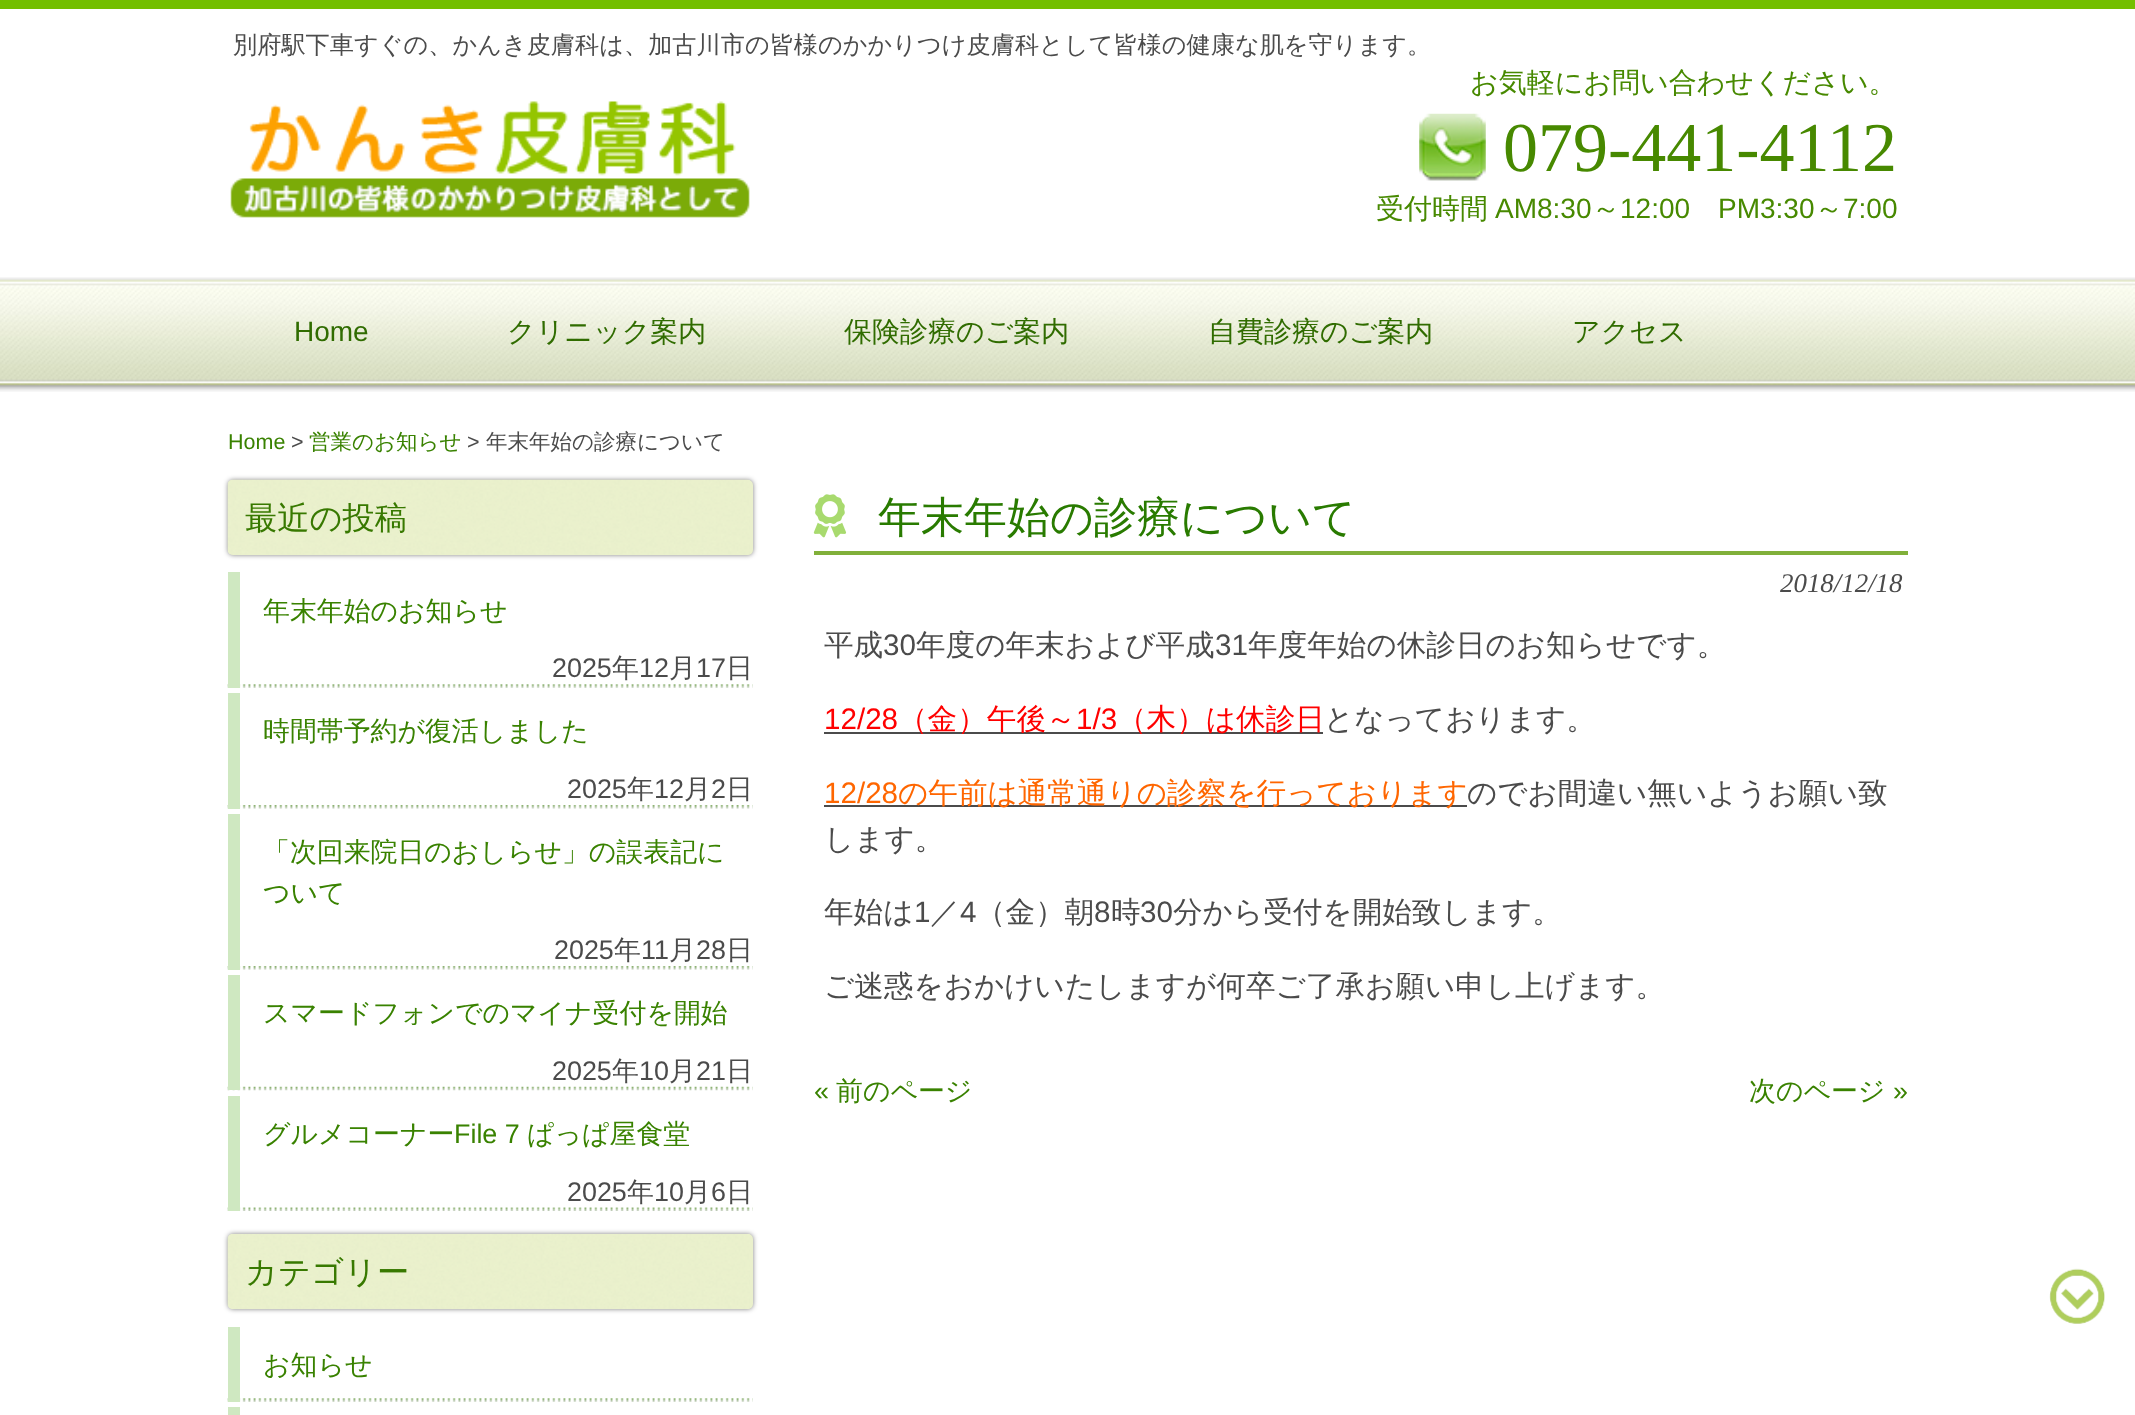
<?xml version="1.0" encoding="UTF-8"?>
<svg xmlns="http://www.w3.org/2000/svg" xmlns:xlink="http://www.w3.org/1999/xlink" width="2135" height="1415">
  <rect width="100%" height="100%" fill="#ffffff" />
  <rect width="2135" height="9" fill="#73bf00" />
  <image x="230" y="101" width="520" height="117" xlink:href="image1.png" />
  <image x="1419" y="113" width="67" height="68" xlink:href="image2.png" />
  <image x="0" y="277" width="2135" height="115" xlink:href="image3.png" />
  <rect x="228" y="480" width="525" height="75" rx="5" fill="#000000" fill-opacity="0.5" filter="blur(2.5px)" />
  <rect x="228" y="480" width="525" height="75" rx="5" fill="#eaf0cc" />
  <image x="227" y="479" width="523" height="76" xlink:href="image4.png" />
  <image x="227" y="684" width="526" height="4" xlink:href="image5.png" />
  <rect x="228" y="572" width="12" height="116" fill="#cfe8c1" />
  <image x="227" y="805" width="526" height="4" xlink:href="image6.png" />
  <rect x="228" y="693" width="12" height="116" fill="#cfe8c1" />
  <image x="227" y="966" width="526" height="4" xlink:href="image6.png" />
  <rect x="228" y="814" width="12" height="156" fill="#cfe8c1" />
  <image x="227" y="1086" width="526" height="5" xlink:href="image7.png" />
  <rect x="228" y="975" width="12" height="115" fill="#cfe8c1" />
  <image x="227" y="1207" width="526" height="4" xlink:href="image8.png" />
  <rect x="228" y="1096" width="12" height="115" fill="#cfe8c1" />
  <rect x="228" y="1234" width="525" height="75" rx="5" fill="#000000" fill-opacity="0.5" filter="blur(2.5px)" />
  <rect x="228" y="1234" width="525" height="75" rx="5" fill="#eaf0cc" />
  <image x="227" y="1234" width="523" height="75" xlink:href="image9.png" />
  <image x="227" y="1398" width="526" height="4" xlink:href="image5.png" />
  <rect x="228" y="1327" width="12" height="75" fill="#cfe8c1" />
  <rect x="228" y="1407" width="12" height="8" fill="#cfe8c1" />
  <rect x="814" y="551" width="1094" height="4" fill="#81b03a" />
  <image x="813" y="494" width="34" height="44" xlink:href="image10.png" />
  <rect x="824" y="732" width="499" height="2" fill="#4b4b4b" />
  <rect x="824" y="805" width="643" height="2" fill="#4b4b4b" />
  <image x="2049" y="1268" width="56" height="56" xlink:href="image11.png" />
  <text x="233" y="53" style="font-family: WenQuanYi Zen Hei; font-size: 24.2px; font-weight: 500; fill: #4b4b4b">別府駅下車すぐの、かんき皮膚科は、加古川市の皆様のかかりつけ皮膚科として皆様の健康な肌を守ります。</text>
  <text x="1470" y="92" style="font-family: WenQuanYi Zen Hei; font-size: 28px; font-weight: 500; fill: #478900">お気軽にお問い合わせください。</text>
  <text x="1503" y="171" style="font-family: Liberation Serif; font-size: 70px; fill: #478900">079-441-4112</text>
  <text x="1376" y="218" style="font-family: WenQuanYi Zen Hei; font-size: 28px; font-weight: 500; fill: #478900">受付時間</text>
  <text x="1495" y="218" style="font-family: Liberation Sans; font-size: 28px; fill: #478900">AM8:30</text>
  <text x="1592" y="218" style="font-family: WenQuanYi Zen Hei; font-size: 28px; font-weight: 500; fill: #478900">～</text>
  <text x="1620" y="218" style="font-family: Liberation Sans; font-size: 28px; fill: #478900">12:00</text>
  <text x="1718" y="218" style="font-family: Liberation Sans; font-size: 28px; fill: #478900">PM3:30</text>
  <text x="1815" y="218" style="font-family: WenQuanYi Zen Hei; font-size: 28px; font-weight: 500; fill: #478900">～</text>
  <text x="1843" y="218" style="font-family: Liberation Sans; font-size: 28px; fill: #478900">7:00</text>
  <text x="294" y="341" style="font-family: Liberation Sans; font-size: 28px; fill: #306c00">Home</text>
  <text x="507" y="341" style="font-family: WenQuanYi Zen Hei; font-size: 28px; font-weight: 500; fill: #306c00">クリニック案内</text>
  <text x="844" y="341" style="font-family: WenQuanYi Zen Hei; font-size: 28px; font-weight: 500; fill: #306c00">保険診療のご案内</text>
  <text x="1208" y="341" style="font-family: WenQuanYi Zen Hei; font-size: 28px; font-weight: 500; fill: #306c00">自費診療のご案内</text>
  <text x="1572" y="341" style="font-family: WenQuanYi Zen Hei; font-size: 28px; font-weight: 500; fill: #306c00">アクセス</text>
  <text x="228" y="449" style="font-family: Liberation Sans; font-size: 21.5px; fill: #398200">Home</text>
  <text x="291" y="449" style="font-family: Liberation Sans; font-size: 21.5px; fill: #4b4b4b">&gt;</text>
  <text x="309" y="449" style="font-family: WenQuanYi Zen Hei; font-size: 21.5px; font-weight: 500; fill: #398200">営業のお知らせ</text>
  <text x="467" y="449" style="font-family: Liberation Sans; font-size: 21.5px; fill: #4b4b4b">&gt;</text>
  <text x="486" y="449" style="font-family: WenQuanYi Zen Hei; font-size: 21.5px; font-weight: 500; fill: #4b4b4b">年末年始の診療について</text>
  <text x="245" y="529" style="font-family: WenQuanYi Zen Hei; font-size: 32.25px; font-weight: 500; fill: #387900">最近の投稿</text>
  <text x="263" y="620" style="font-family: WenQuanYi Zen Hei; font-size: 26.9px; font-weight: 500; fill: #398200">年末年始のお知らせ</text>
  <text x="552" y="677" style="font-family: Liberation Sans; font-size: 26.9px; fill: #4b4b4b">2025</text>
  <text x="612" y="677" style="font-family: WenQuanYi Zen Hei; font-size: 26.9px; font-weight: 500; fill: #4b4b4b">年</text>
  <text x="639" y="677" style="font-family: Liberation Sans; font-size: 26.9px; fill: #4b4b4b">12</text>
  <text x="669" y="677" style="font-family: WenQuanYi Zen Hei; font-size: 26.9px; font-weight: 500; fill: #4b4b4b">月</text>
  <text x="696" y="677" style="font-family: Liberation Sans; font-size: 26.9px; fill: #4b4b4b">17</text>
  <text x="726" y="677" style="font-family: WenQuanYi Zen Hei; font-size: 26.9px; font-weight: 500; fill: #4b4b4b">日</text>
  <text x="263" y="740" style="font-family: WenQuanYi Zen Hei; font-size: 26.9px; font-weight: 500; fill: #398200">時間帯予約が復活しました</text>
  <text x="567" y="798" style="font-family: Liberation Sans; font-size: 26.9px; fill: #4b4b4b">2025</text>
  <text x="627" y="798" style="font-family: WenQuanYi Zen Hei; font-size: 26.9px; font-weight: 500; fill: #4b4b4b">年</text>
  <text x="654" y="798" style="font-family: Liberation Sans; font-size: 26.9px; fill: #4b4b4b">12</text>
  <text x="684" y="798" style="font-family: WenQuanYi Zen Hei; font-size: 26.9px; font-weight: 500; fill: #4b4b4b">月</text>
  <text x="711" y="798" style="font-family: Liberation Sans; font-size: 26.9px; fill: #4b4b4b">2</text>
  <text x="726" y="798" style="font-family: WenQuanYi Zen Hei; font-size: 26.9px; font-weight: 500; fill: #4b4b4b">日</text>
  <text x="263" y="861" style="font-family: WenQuanYi Zen Hei; font-size: 26.9px; font-weight: 500; fill: #398200">「次回来院日のおしらせ」の誤表記に</text>
  <text x="263" y="902" style="font-family: WenQuanYi Zen Hei; font-size: 26.9px; font-weight: 500; fill: #398200">ついて</text>
  <text x="554" y="959" style="font-family: Liberation Sans; font-size: 26.9px; fill: #4b4b4b">2025</text>
  <text x="614" y="959" style="font-family: WenQuanYi Zen Hei; font-size: 26.9px; font-weight: 500; fill: #4b4b4b">年</text>
  <text x="641" y="959" style="font-family: Liberation Sans; font-size: 26.9px; fill: #4b4b4b">11</text>
  <text x="669" y="959" style="font-family: WenQuanYi Zen Hei; font-size: 26.9px; font-weight: 500; fill: #4b4b4b">月</text>
  <text x="696" y="959" style="font-family: Liberation Sans; font-size: 26.9px; fill: #4b4b4b">28</text>
  <text x="726" y="959" style="font-family: WenQuanYi Zen Hei; font-size: 26.9px; font-weight: 500; fill: #4b4b4b">日</text>
  <text x="263" y="1022" style="font-family: WenQuanYi Zen Hei; font-size: 26.9px; font-weight: 500; fill: #398200">スマードフォンでのマイナ受付を開始</text>
  <text x="552" y="1080" style="font-family: Liberation Sans; font-size: 26.9px; fill: #4b4b4b">2025</text>
  <text x="612" y="1080" style="font-family: WenQuanYi Zen Hei; font-size: 26.9px; font-weight: 500; fill: #4b4b4b">年</text>
  <text x="639" y="1080" style="font-family: Liberation Sans; font-size: 26.9px; fill: #4b4b4b">10</text>
  <text x="669" y="1080" style="font-family: WenQuanYi Zen Hei; font-size: 26.9px; font-weight: 500; fill: #4b4b4b">月</text>
  <text x="696" y="1080" style="font-family: Liberation Sans; font-size: 26.9px; fill: #4b4b4b">21</text>
  <text x="726" y="1080" style="font-family: WenQuanYi Zen Hei; font-size: 26.9px; font-weight: 500; fill: #4b4b4b">日</text>
  <text x="263" y="1143" style="font-family: WenQuanYi Zen Hei; font-size: 26.9px; font-weight: 500; fill: #398200">グルメコーナー</text>
  <text x="454" y="1143" style="font-family: Liberation Sans; font-size: 26.9px; fill: #398200">File 7</text>
  <text x="527" y="1143" style="font-family: WenQuanYi Zen Hei; font-size: 26.9px; font-weight: 500; fill: #398200">ぱっぱ屋食堂</text>
  <text x="567" y="1201" style="font-family: Liberation Sans; font-size: 26.9px; fill: #4b4b4b">2025</text>
  <text x="627" y="1201" style="font-family: WenQuanYi Zen Hei; font-size: 26.9px; font-weight: 500; fill: #4b4b4b">年</text>
  <text x="654" y="1201" style="font-family: Liberation Sans; font-size: 26.9px; fill: #4b4b4b">10</text>
  <text x="684" y="1201" style="font-family: WenQuanYi Zen Hei; font-size: 26.9px; font-weight: 500; fill: #4b4b4b">月</text>
  <text x="711" y="1201" style="font-family: Liberation Sans; font-size: 26.9px; fill: #4b4b4b">6</text>
  <text x="726" y="1201" style="font-family: WenQuanYi Zen Hei; font-size: 26.9px; font-weight: 500; fill: #4b4b4b">日</text>
  <text x="245" y="1283" style="font-family: WenQuanYi Zen Hei; font-size: 32.25px; font-weight: 500; fill: #387900">カテゴリー</text>
  <text x="263" y="1374" style="font-family: WenQuanYi Zen Hei; font-size: 26.9px; font-weight: 500; fill: #398200">お知らせ</text>
  <text x="878" y="532" style="font-family: WenQuanYi Zen Hei; font-size: 43px; font-weight: 500; fill: #297b00">年末年始の診療について</text>
  <text x="1780" y="592" style="font-family: Liberation Serif; font-size: 26.9px; font-style: italic; fill: #4b4b4b">2018/12/18</text>
  <text x="824" y="655" style="font-family: WenQuanYi Zen Hei; font-size: 29.6px; font-weight: 500; fill: #4b4b4b">平成</text>
  <text x="883" y="655" style="font-family: Liberation Sans; font-size: 29.6px; fill: #4b4b4b">30</text>
  <text x="916" y="655" style="font-family: WenQuanYi Zen Hei; font-size: 29.6px; font-weight: 500; fill: #4b4b4b">年度の年末および平成</text>
  <text x="1215" y="655" style="font-family: Liberation Sans; font-size: 29.6px; fill: #4b4b4b">31</text>
  <text x="1248" y="655" style="font-family: WenQuanYi Zen Hei; font-size: 29.6px; font-weight: 500; fill: #4b4b4b">年度年始の休診日のお知らせです。</text>
  <text x="824" y="729" style="font-family: Liberation Sans; font-size: 29.6px; fill: #ff0000">12/28</text>
  <text x="898" y="729" style="font-family: WenQuanYi Zen Hei; font-size: 29.6px; font-weight: 500; fill: #ff0000">（金）午後～</text>
  <text x="1076" y="729" style="font-family: Liberation Sans; font-size: 29.6px; fill: #ff0000">1/3</text>
  <text x="1117" y="729" style="font-family: WenQuanYi Zen Hei; font-size: 29.6px; font-weight: 500; fill: #ff0000">（木）は休診日</text>
  <text x="1324" y="729" style="font-family: WenQuanYi Zen Hei; font-size: 29.6px; font-weight: 500; fill: #4b4b4b">となっております。</text>
  <text x="824" y="803" style="font-family: Liberation Sans; font-size: 29.6px; fill: #ff6600">12/28</text>
  <text x="898" y="803" style="font-family: WenQuanYi Zen Hei; font-size: 29.6px; font-weight: 500; fill: #ff6600">の午前は通常通りの診察を行っております</text>
  <text x="1467" y="803" style="font-family: WenQuanYi Zen Hei; font-size: 29.6px; font-weight: 500; fill: #4b4b4b">のでお間違い無いようお願い致</text>
  <text x="824" y="849" style="font-family: WenQuanYi Zen Hei; font-size: 29.6px; font-weight: 500; fill: #4b4b4b">します。</text>
  <text x="824" y="922" style="font-family: WenQuanYi Zen Hei; font-size: 29.6px; font-weight: 500; fill: #4b4b4b">年始は</text>
  <text x="914" y="922" style="font-family: Liberation Sans; font-size: 29.6px; fill: #4b4b4b">1</text>
  <text x="930" y="922" style="font-family: WenQuanYi Zen Hei; font-size: 29.6px; font-weight: 500; fill: #4b4b4b">／</text>
  <text x="960" y="922" style="font-family: Liberation Sans; font-size: 29.6px; fill: #4b4b4b">4</text>
  <text x="976" y="922" style="font-family: WenQuanYi Zen Hei; font-size: 29.6px; font-weight: 500; fill: #4b4b4b">（金）朝</text>
  <text x="1094" y="922" style="font-family: Liberation Sans; font-size: 29.6px; fill: #4b4b4b">8</text>
  <text x="1111" y="922" style="font-family: WenQuanYi Zen Hei; font-size: 29.6px; font-weight: 500; fill: #4b4b4b">時</text>
  <text x="1140" y="922" style="font-family: Liberation Sans; font-size: 29.6px; fill: #4b4b4b">30</text>
  <text x="1173" y="922" style="font-family: WenQuanYi Zen Hei; font-size: 29.6px; font-weight: 500; fill: #4b4b4b">分から受付を開始致します。</text>
  <text x="824" y="996" style="font-family: WenQuanYi Zen Hei; font-size: 29.6px; font-weight: 500; fill: #4b4b4b">ご迷惑をおかけいたしますが何卒ご了承お願い申し上げます。</text>
  <text x="814" y="1100" style="font-family: Liberation Sans; font-size: 26.9px; fill: #398200">«</text>
  <text x="836" y="1100" style="font-family: WenQuanYi Zen Hei; font-size: 26.9px; font-weight: 500; fill: #398200">前のページ</text>
  <text x="1749" y="1100" style="font-family: WenQuanYi Zen Hei; font-size: 26.9px; font-weight: 500; fill: #398200">次のページ</text>
  <text x="1893" y="1100" style="font-family: Liberation Sans; font-size: 26.9px; fill: #398200">»</text>
</svg>
